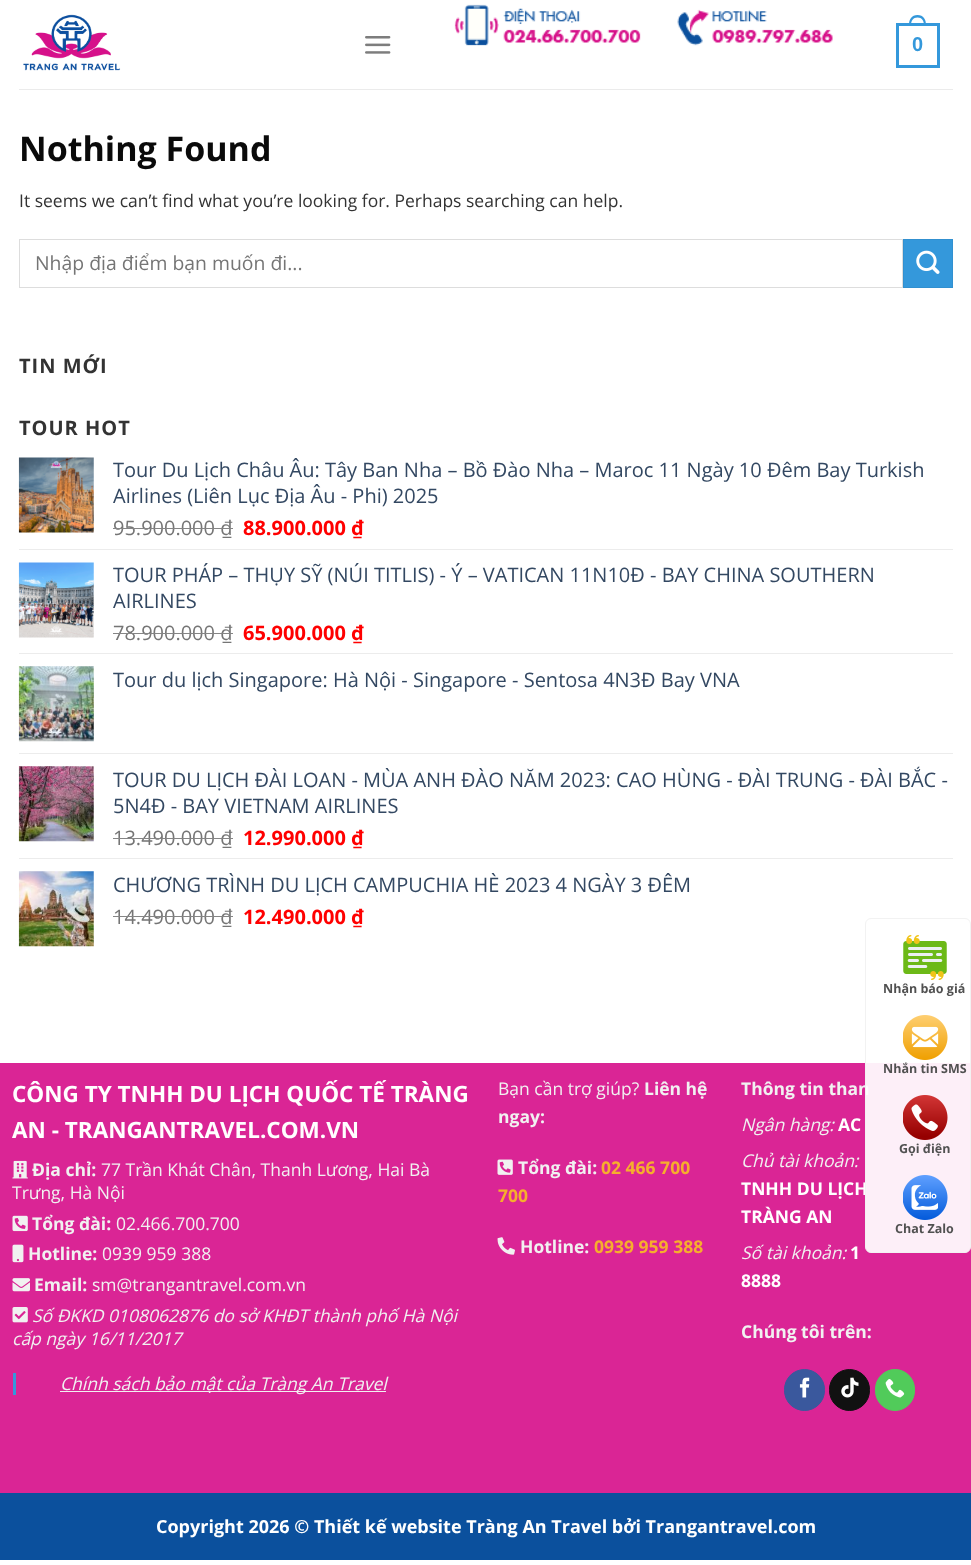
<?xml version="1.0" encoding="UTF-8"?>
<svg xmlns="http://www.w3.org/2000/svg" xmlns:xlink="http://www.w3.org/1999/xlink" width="971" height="1565">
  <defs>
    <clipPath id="clip1"><rect x="113" y="458" width="840" height="51" /></clipPath>
    <clipPath id="clip2"><rect x="113" y="563" width="840" height="51" /></clipPath>
    <clipPath id="clip3"><rect x="113" y="666" width="840" height="27" /></clipPath>
    <clipPath id="clip4"><rect x="113" y="766" width="840" height="53" /></clipPath>
  </defs>
  <rect width="100%" height="100%" fill="#ffffff" />
  <image x="23" y="14" width="98" height="57" xlink:href="image1.png" />
  <image x="365" y="36" width="26" height="18" xlink:href="image2.png" />
  <image x="454" y="4" width="379" height="42" xlink:href="image3.png" />
  <rect x="897.5" y="24.5" width="41" height="42" fill="none" stroke="#3498db" stroke-width="3" />
  <path d="M 917.5 15 c 6 0 8.5 4.5 8.5 10 h -17 c 0 -5.5 2.5 -10 8.5 -10 z m 0 2.5 c 4.5 0 6.5 3.5 6.5 7.5 h -13 c 0 -4 2 -7.5 6.5 -7.5 z" fill="#3498db" fill-rule="evenodd" />
  <rect x="19" y="89" width="934" height="1" fill="#ebebeb" />
  <rect x="19.5" y="239.5" width="883" height="48" fill="none" stroke="#dddddd" />
  <rect x="903.5" y="239.5" width="49" height="48" fill="#3498db" stroke="#3190d0" />
  <image x="916" y="250" width="24" height="24" xlink:href="image4.png" />
  <image x="18" y="457" width="76" height="76" xlink:href="image5.png" />
  <rect x="19" y="549" width="934" height="1" fill="#ececec" />
  <image x="18" y="562" width="76" height="76" xlink:href="image6.png" />
  <rect x="19" y="653" width="934" height="1" fill="#ececec" />
  <image x="18" y="666" width="76" height="76" xlink:href="image7.png" />
  <rect x="19" y="753" width="934" height="1" fill="#ececec" />
  <image x="18" y="766" width="76" height="76" xlink:href="image8.png" />
  <rect x="19" y="858" width="934" height="1" fill="#ececec" />
  <image x="18" y="871" width="76" height="76" xlink:href="image9.png" />
  <rect y="1063" width="971" height="430" fill="#da2595" />
  <image x="12" y="1160" width="16" height="19" xlink:href="image10.png" />
  <image x="12" y="1215" width="16" height="17" xlink:href="image11.png" />
  <image x="12" y="1244" width="12" height="19" xlink:href="image12.png" />
  <image x="12" y="1278" width="18" height="14" xlink:href="image13.png" />
  <image x="12" y="1307" width="16" height="16" xlink:href="image14.png" />
  <rect x="13" y="1373" width="3" height="22" fill="#3498db" />
  <rect x="60" y="1391" width="326" height="1" fill="#f1f1f1" />
  <image x="497" y="1159" width="16" height="16" xlink:href="image15.png" />
  <image x="497" y="1237" width="18" height="18" xlink:href="image16.png" />
  <rect x="784.5" y="1369.5" width="40" height="41" rx="20" fill="#3a589d" stroke="#3a589d" />
  <image x="799" y="1377" width="11" height="21" xlink:href="image17.png" />
  <rect x="829.5" y="1369.5" width="40" height="41" rx="20" fill="#111111" stroke="#111111" />
  <image x="841" y="1377" width="18" height="21" xlink:href="image18.png" />
  <rect x="875.5" y="1369.5" width="39" height="41" rx="19.5" fill="#51cb5a" stroke="#51cb5a" />
  <image x="885" y="1379" width="20" height="19" xlink:href="image19.png" />
  <rect y="1493" width="971" height="67" fill="#0b509d" />
  <text x="912" y="51" style="font-family: Liberation Sans; font-size: 20px; font-weight: bold; fill: #3498db">0</text>
  <text x="19" y="161" style="font-family: Open Sans; font-size: 34px; font-weight: bold; fill: #0a0a0a">Nothing Found</text>
  <text x="19" y="207" style="font-family: Open Sans; font-size: 17.5px; fill: #333333">It seems we can’t find what you’re looking for. Perhaps searching can help.</text>
  <text x="35" y="270" style="font-family: Open Sans; font-size: 19.4px; fill: #757575">Nhập địa điểm bạn muốn đi...</text>
  <text x="19" y="373" style="font-family: Open Sans; font-size: 20px; font-weight: bold; letter-spacing: 1px; fill: #333333">TIN MỚI</text>
  <text x="19" y="435" style="font-family: Open Sans; font-size: 20px; font-weight: bold; letter-spacing: 1px; fill: #333333">TOUR HOT</text>
  <g clip-path="url(#clip1)">
    <text x="113" y="477" style="font-family: Open Sans; font-size: 20px; fill: #334862">Tour Du Lịch Châu Âu: Tây Ban Nha – Bồ Đào Nha – Maroc 11 Ngày 10 Đêm Bay Turkish</text>
  </g>
  <text x="113" y="503" style="font-family: Open Sans; font-size: 20px; fill: #334862">Airlines (Liên Lục Địa Âu - Phi) 2025</text>
  <text x="113" y="535" style="font-family: Open Sans; font-size: 20px; fill: #757575">95.900.000 ₫</text>
  <rect x="113" y="528" width="120" height="1" fill="#858585" />
  <text x="243" y="535" style="font-family: Open Sans; font-size: 20px; font-weight: bold; fill: #ff0000">88.900.000 ₫</text>
  <g clip-path="url(#clip2)">
    <text x="113" y="582" style="font-family: Open Sans; font-size: 20px; fill: #334862">TOUR PHÁP – THỤY SỸ (NÚI TITLIS) - Ý – VATICAN 11N10Đ - BAY CHINA SOUTHERN</text>
  </g>
  <text x="113" y="608" style="font-family: Open Sans; font-size: 20px; fill: #334862">AIRLINES</text>
  <text x="113" y="640" style="font-family: Open Sans; font-size: 20px; fill: #757575">78.900.000 ₫</text>
  <rect x="113" y="633" width="120" height="1" fill="#858585" />
  <text x="243" y="640" style="font-family: Open Sans; font-size: 20px; font-weight: bold; fill: #ff0000">65.900.000 ₫</text>
  <g clip-path="url(#clip3)">
    <text x="113" y="687" style="font-family: Open Sans; font-size: 20px; fill: #334862">Tour du lịch Singapore: Hà Nội - Singapore - Sentosa 4N3Đ Bay VNA</text>
  </g>
  <g clip-path="url(#clip4)">
    <text x="113" y="787" style="font-family: Open Sans; font-size: 20px; fill: #334862">TOUR DU LỊCH ĐÀI LOAN - MÙA ANH ĐÀO NĂM 2023: CAO HÙNG - ĐÀI TRUNG - ĐÀI BẮC -</text>
  </g>
  <text x="113" y="813" style="font-family: Open Sans; font-size: 20px; fill: #334862">5N4Đ - BAY VIETNAM AIRLINES</text>
  <text x="113" y="845" style="font-family: Open Sans; font-size: 20px; fill: #757575">13.490.000 ₫</text>
  <rect x="113" y="838" width="120" height="1" fill="#858585" />
  <text x="243" y="845" style="font-family: Open Sans; font-size: 20px; font-weight: bold; fill: #ff0000">12.990.000 ₫</text>
  <text x="113" y="892" style="font-family: Open Sans; font-size: 20px; fill: #334862">CHƯƠNG TRÌNH DU LỊCH CAMPUCHIA HÈ 2023 4 NGÀY 3 ĐÊM</text>
  <text x="113" y="924" style="font-family: Open Sans; font-size: 20px; fill: #757575">14.490.000 ₫</text>
  <rect x="113" y="916" width="120" height="1" fill="#858585" />
  <text x="243" y="924" style="font-family: Open Sans; font-size: 20px; font-weight: bold; fill: #ff0000">12.490.000 ₫</text>
  <text x="12" y="1102" style="font-family: Open Sans; font-size: 22.5px; font-weight: bold; fill: #ffffff">CÔNG TY TNHH DU LỊCH QUỐC TẾ TRÀNG</text>
  <text x="12" y="1138" style="font-family: Open Sans; font-size: 22.5px; font-weight: bold; fill: #ffffff">AN - TRANGANTRAVEL.COM.VN</text>
  <text x="32" y="1176" style="font-family: Open Sans; font-size: 17.5px; font-weight: bold; fill: #f1f1f1">Địa chỉ:</text>
  <text x="101" y="1176" style="font-family: Open Sans; font-size: 17.5px; fill: #f1f1f1">77 Trần Khát Chân, Thanh Lương, Hai Bà</text>
  <text x="12" y="1199" style="font-family: Open Sans; font-size: 17.5px; fill: #f1f1f1">Trưng, Hà Nội</text>
  <text x="32" y="1230" style="font-family: Open Sans; font-size: 17.5px; font-weight: bold; fill: #f1f1f1">Tổng đài:</text>
  <text x="116" y="1230" style="font-family: Open Sans; font-size: 17.5px; fill: #f1f1f1">02.466.700.700</text>
  <text x="28" y="1260" style="font-family: Open Sans; font-size: 17.5px; font-weight: bold; fill: #f1f1f1">Hotline:</text>
  <text x="102" y="1260" style="font-family: Open Sans; font-size: 17.5px; fill: #f1f1f1">0939 959 388</text>
  <text x="34" y="1291" style="font-family: Open Sans; font-size: 17.5px; font-weight: bold; fill: #f1f1f1">Email:</text>
  <text x="92" y="1291" style="font-family: Open Sans; font-size: 17.5px; fill: #f1f1f1">sm@trangantravel.com.vn</text>
  <text x="32" y="1322" style="font-family: Open Sans; font-size: 17.5px; font-style: italic; fill: #f1f1f1">Số ĐKKD 0108062876 do sở KHĐT thành phố Hà Nội</text>
  <text x="12" y="1345" style="font-family: Open Sans; font-size: 17.5px; font-style: italic; fill: #f1f1f1">cấp ngày 16/11/2017</text>
  <text x="60" y="1390" style="font-family: Open Sans; font-size: 17.5px; font-style: italic; fill: #f1f1f1">Chính sách bảo mật của Tràng An Travel</text>
  <text x="498" y="1095" style="font-family: Open Sans; font-size: 17.5px; fill: #f1f1f1">Bạn cần trợ giúp?</text>
  <text x="644" y="1095" style="font-family: Open Sans; font-size: 17.5px; font-weight: bold; fill: #f1f1f1">Liên hệ</text>
  <text x="498" y="1123" style="font-family: Open Sans; font-size: 17.5px; font-weight: bold; fill: #f1f1f1">ngay:</text>
  <text x="518" y="1174" style="font-family: Open Sans; font-size: 17.5px; font-weight: bold; fill: #f1f1f1">Tổng đài:</text>
  <text x="601" y="1174" style="font-family: Open Sans; font-size: 17.5px; font-weight: bold; fill: #f6ae2d">02 466 700</text>
  <text x="498" y="1202" style="font-family: Open Sans; font-size: 17.5px; font-weight: bold; fill: #f6ae2d">700</text>
  <text x="520" y="1253" style="font-family: Open Sans; font-size: 17.5px; font-weight: bold; fill: #f1f1f1">Hotline:</text>
  <text x="594" y="1253" style="font-family: Open Sans; font-size: 17.5px; font-weight: bold; fill: #f6ae2d">0939 959 388</text>
  <text x="741" y="1095" style="font-family: Open Sans; font-size: 17.5px; font-weight: bold; fill: #f1f1f1">Thông tin than</text>
  <text x="741" y="1131" style="font-family: Open Sans; font-size: 17.5px; font-style: italic; fill: #f1f1f1">Ngân hàng:</text>
  <text x="838" y="1131" style="font-family: Open Sans; font-size: 17.5px; font-weight: bold; fill: #ffffff">AC</text>
  <text x="741" y="1167" style="font-family: Open Sans; font-size: 17.5px; font-style: italic; fill: #f1f1f1">Chủ tài khoản:</text>
  <text x="741" y="1195" style="font-family: Open Sans; font-size: 17.5px; font-weight: bold; fill: #ffffff">TNHH DU LỊCH</text>
  <text x="741" y="1223" style="font-family: Open Sans; font-size: 17.5px; font-weight: bold; fill: #ffffff">TRÀNG AN</text>
  <text x="741" y="1259" style="font-family: Open Sans; font-size: 17.5px; font-style: italic; fill: #f1f1f1">Số tài khoản:</text>
  <text x="850" y="1259" style="font-family: Open Sans; font-size: 17.5px; font-weight: bold; fill: #ffffff">1</text>
  <text x="741" y="1287" style="font-family: Open Sans; font-size: 17.5px; font-weight: bold; fill: #ffffff">8888</text>
  <text x="741" y="1338" style="font-family: Open Sans; font-size: 17.5px; font-weight: bold; fill: #f1f1f1">Chúng tôi trên:</text>
  <text x="156" y="1533" style="font-family: Open Sans; font-size: 18px; font-weight: bold; fill: #ffffff">Copyright 2026 © Thiết kế website Tràng An Travel bởi Trangantravel.com</text>
  <rect x="865.5" y="918.5" width="105" height="334" rx="5.5" fill="#ffffff" fill-opacity="0.93" stroke="#f2f2f2" />
  <image x="903" y="935" width="44" height="45" xlink:href="image20.png" />
  <text x="883" y="993" style="font-family: Open Sans; font-size: 12.5px; font-weight: bold; fill: #515151">Nhận báo giá</text>
  <image x="903" y="1015" width="45" height="45" xlink:href="image21.png" />
  <text x="883" y="1073" style="font-family: Open Sans; font-size: 12.5px; font-weight: bold; fill: #515151">Nhắn tin SMS</text>
  <image x="903" y="1095" width="45" height="45" xlink:href="image22.png" />
  <text x="899" y="1153" style="font-family: Open Sans; font-size: 12.5px; font-weight: bold; fill: #515151">Gọi điện</text>
  <image x="903" y="1175" width="45" height="45" xlink:href="image23.png" />
  <text x="895" y="1233" style="font-family: Open Sans; font-size: 12.5px; font-weight: bold; fill: #515151">Chat Zalo</text>
</svg>
